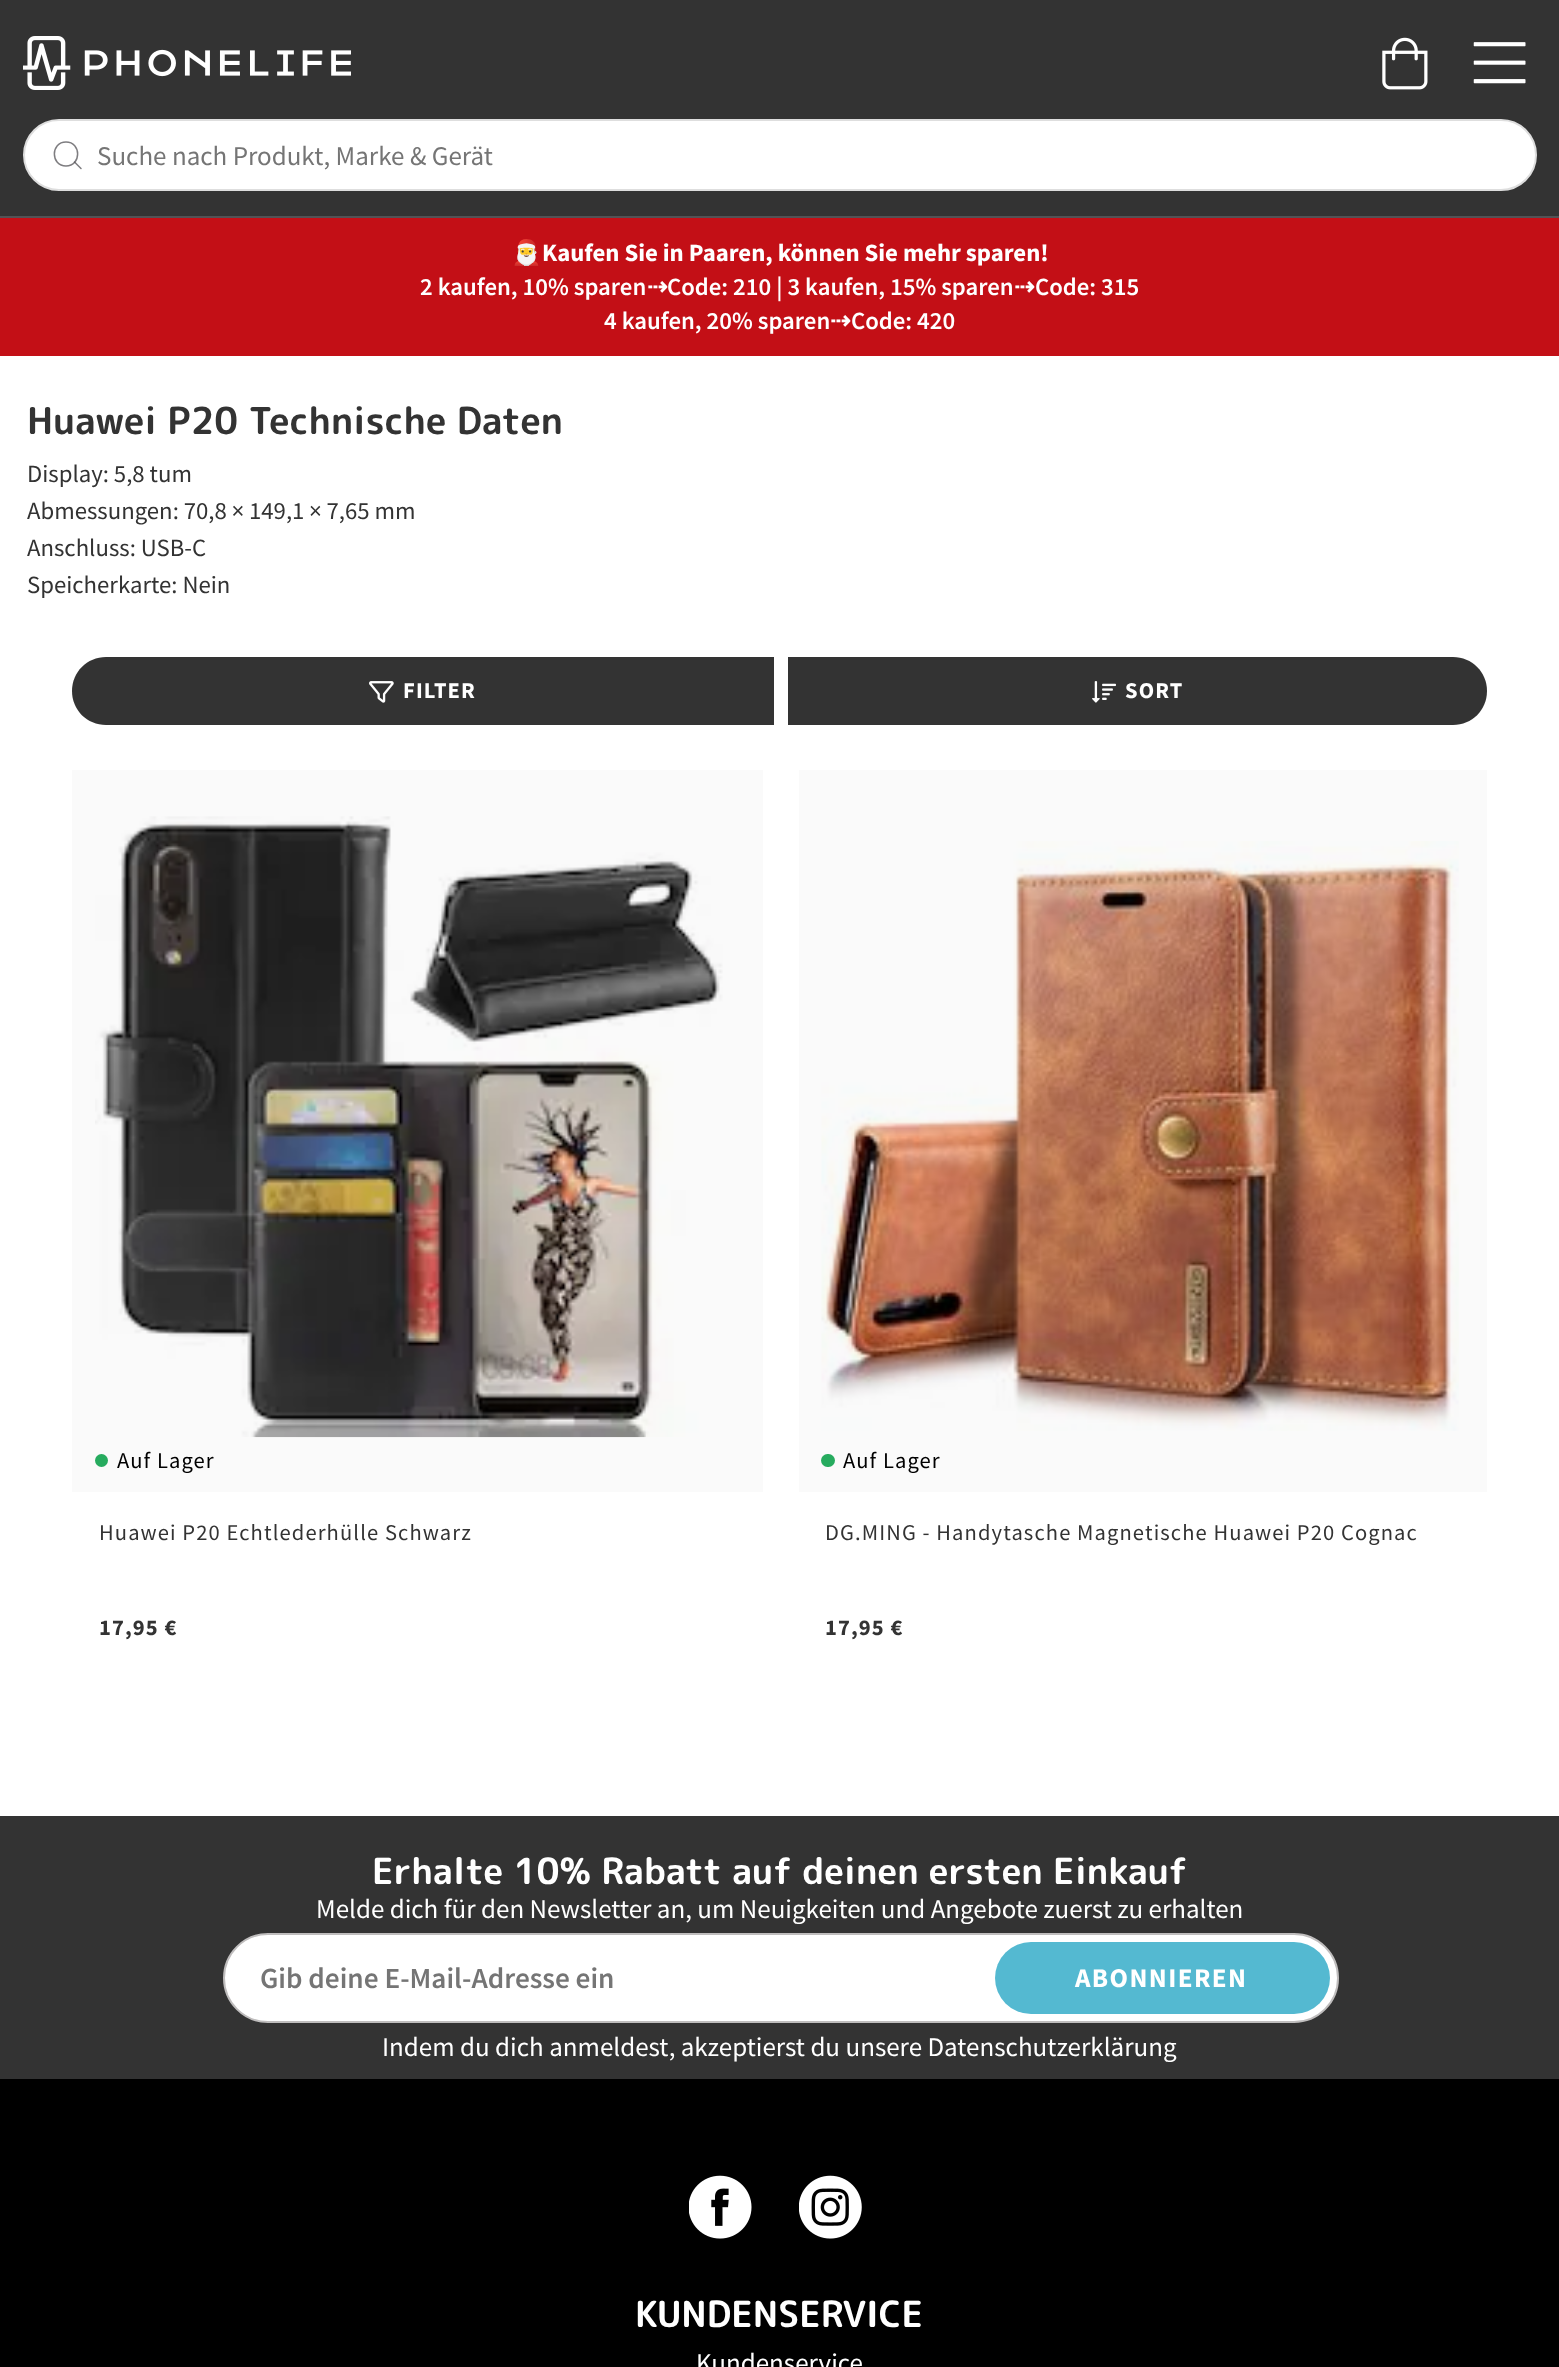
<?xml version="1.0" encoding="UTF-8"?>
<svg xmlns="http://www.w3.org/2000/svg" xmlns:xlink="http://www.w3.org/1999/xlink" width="1559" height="2367">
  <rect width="100%" height="100%" fill="#ffffff" />
  <rect x="799" y="770" width="688" height="722" fill="#fafafa" />
  <rect x="72" y="770" width="691" height="722" fill="#fafafa" />
  <rect width="1559" height="216" fill="#333333" />
  <rect y="216" width="1559" height="2" fill="#535255" />
  <image x="23" y="36" width="328" height="54" xlink:href="image1.png" />
  <image x="1382" y="37" width="46" height="53" xlink:href="image2.png" />
  <image x="1473" y="42" width="53" height="42" xlink:href="image3.png" />
  <rect x="24" y="120" width="1512" height="70" rx="35" fill="#ffffff" stroke="#dedede" stroke-width="2" />
  <path d="M 66 166 c 15.5 0 15.5 -24 0 -24 c -15.5 0 -15.5 24 0 24 z" fill="none" stroke="#7e7d80" stroke-width="1.5" stroke-linecap="round" stroke-linejoin="round" />
  <path d="M 81 168.5 l -6.5 -6.5" fill="none" stroke="#535255" stroke-opacity="0.75" stroke-width="1.5" stroke-linecap="round" stroke-linejoin="round" />
  <rect y="218" width="1559" height="138" fill="#c30f16" />
  <path d="M 106 657 h 668 v 68 h -668 c -19 0 -34 -15 -34 -34 c 0 -19 15 -34 34 -34 z" fill="#333333" />
  <image x="369" y="681" width="25" height="22" xlink:href="image4.png" />
  <path d="M 788 657 h 665 c 19 0 34 15 34 34 c 0 19 -15 34 -34 34 h -665 z" fill="#333333" />
  <image x="1092" y="681" width="24" height="22" xlink:href="image5.png" />
  <image x="95" y="816" width="628" height="622" xlink:href="image6.png" />
  <circle cx="101.5" cy="1460.5" r="6.5" fill="#26ab5e" />
  <image x="821" y="841" width="638" height="590" xlink:href="image7.png" />
  <rect x="821" y="1454" width="14" height="13" rx="6.5" fill="#26ab5e" />
  <rect y="1816" width="1559" height="263" fill="#333333" />
  <rect x="224" y="1934" width="1114" height="88" rx="44" fill="#ffffff" stroke="#bfbdbd" stroke-width="2" />
  <rect x="995" y="1942" width="335" height="72" rx="36" fill="#54b9d1" />
  <rect y="2079" width="1559" height="288" fill="#000000" />
  <image x="689" y="2175" width="63" height="64" xlink:href="image8.png" />
  <image x="799" y="2175" width="63" height="64" xlink:href="image9.png" />
  <text x="97" y="165" style="font-family: Source Sans Pro; font-size: 27px; fill: #757575">Suche nach Produkt, Marke &amp; Gerät</text>
  <text x="511" y="261" style="font-family: Noto Color Emoji; font-size: 24.75px; font-weight: bold; fill: #ffffff">🎅</text>
  <text x="542" y="261" style="font-family: Source Sans Pro; font-size: 24.75px; font-weight: bold; fill: #ffffff">Kaufen Sie in Paaren, können Sie mehr sparen!</text>
  <text x="420" y="295" style="font-family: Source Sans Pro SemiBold; font-size: 24.75px; font-weight: 600; fill: #ffffff">2 kaufen, 10% sparen</text>
  <text x="647" y="295" style="font-family: DejaVu Sans; font-size: 24.75px; font-weight: bold; fill: #ffffff">⇢</text>
  <text x="667" y="295" style="font-family: Source Sans Pro SemiBold; font-size: 24.75px; font-weight: 600; fill: #ffffff">Code: 210 | 3 kaufen, 15% sparen</text>
  <text x="1014" y="295" style="font-family: DejaVu Sans; font-size: 24.75px; font-weight: bold; fill: #ffffff">⇢</text>
  <text x="1035" y="295" style="font-family: Source Sans Pro SemiBold; font-size: 24.75px; font-weight: 600; fill: #ffffff">Code: 315</text>
  <text x="604" y="329" style="font-family: Source Sans Pro SemiBold; font-size: 24.75px; font-weight: 600; fill: #ffffff">4 kaufen, 20% sparen</text>
  <text x="830" y="329" style="font-family: DejaVu Sans; font-size: 24.75px; font-weight: bold; fill: #ffffff">⇢</text>
  <text x="851" y="329" style="font-family: Source Sans Pro SemiBold; font-size: 24.75px; font-weight: 600; fill: #ffffff">Code: 420</text>
  <text x="27" y="434" style="font-family: 'Rounded Mplus 1c Bold'; font-size: 37.1px; font-weight: bold; fill: #333333">Huawei P20 Technische Daten</text>
  <text x="27" y="482" style="font-family: Source Sans Pro; font-size: 24.75px; fill: #333333">Display: 5,8 tum</text>
  <text x="27" y="519" style="font-family: Source Sans Pro; font-size: 24.75px; fill: #333333">Abmessungen: 70,8 × 149,1 × 7,65 mm</text>
  <text x="27" y="556" style="font-family: Source Sans Pro; font-size: 24.75px; fill: #333333">Anschluss: USB-C</text>
  <text x="27" y="593" style="font-family: Source Sans Pro; font-size: 24.75px; fill: #333333">Speicherkarte: Nein</text>
  <text x="403" y="698" style="font-family: Source Sans Pro; font-size: 22.5px; font-weight: bold; letter-spacing: 1.12px; fill: #ffffff">FILTER</text>
  <text x="1125" y="698" style="font-family: Source Sans Pro; font-size: 22.5px; font-weight: bold; letter-spacing: 1.12px; fill: #ffffff">SORT</text>
  <text x="117" y="1468" style="font-family: Source Sans Pro; font-size: 22.5px; letter-spacing: 1.12px; fill: #000000">Auf Lager</text>
  <text x="99" y="1540" style="font-family: Source Sans Pro; font-size: 22.5px; letter-spacing: 1.12px; fill: #333333">Huawei P20 Echtlederhülle Schwarz</text>
  <text x="99" y="1635" style="font-family: Source Sans Pro; font-size: 22.5px; font-weight: bold; letter-spacing: 1.12px; fill: #333333">17,95 €</text>
  <text x="843" y="1468" style="font-family: Source Sans Pro; font-size: 22.5px; letter-spacing: 1.12px; fill: #000000">Auf Lager</text>
  <text x="825" y="1540" style="font-family: Source Sans Pro; font-size: 22.5px; letter-spacing: 1.12px; fill: #333333">DG.MING - Handytasche Magnetische Huawei P20 Cognac</text>
  <text x="825" y="1635" style="font-family: Source Sans Pro; font-size: 22.5px; font-weight: bold; letter-spacing: 1.12px; fill: #333333">17,95 €</text>
  <text x="372" y="1884" style="font-family: 'Rounded Mplus 1c Bold'; font-size: 36px; font-weight: bold; fill: #ffffff">Erhalte 10% Rabatt auf deinen ersten Einkauf</text>
  <text x="316" y="1918" style="font-family: Source Sans Pro; font-size: 27px; fill: #ffffff">Melde dich für den Newsletter an, um Neuigkeiten und Angebote zuerst zu erhalten</text>
  <text x="260" y="1988" style="font-family: Source Sans Pro SemiBold; font-size: 29.25px; font-weight: 600; fill: #757575">Gib deine E-Mail-Adresse ein</text>
  <text x="1075" y="1987" style="font-family: Source Sans Pro; font-size: 27px; font-weight: bold; letter-spacing: 1.4px; fill: #ffffff">ABONNIEREN</text>
  <text x="382" y="2056" style="font-family: Source Sans Pro; font-size: 27px; fill: #ffffff">Indem du dich anmeldest, akzeptierst du unsere Datenschutzerklärung</text>
  <text x="635" y="2327" style="font-family: 'Rounded Mplus 1c Bold'; font-size: 36px; font-weight: bold; fill: #ffffff">KUNDENSERVICE</text>
  <text x="696" y="2372" style="font-family: Source Sans Pro; font-size: 27px; fill: #ffffff">Kundenservice</text>
</svg>
